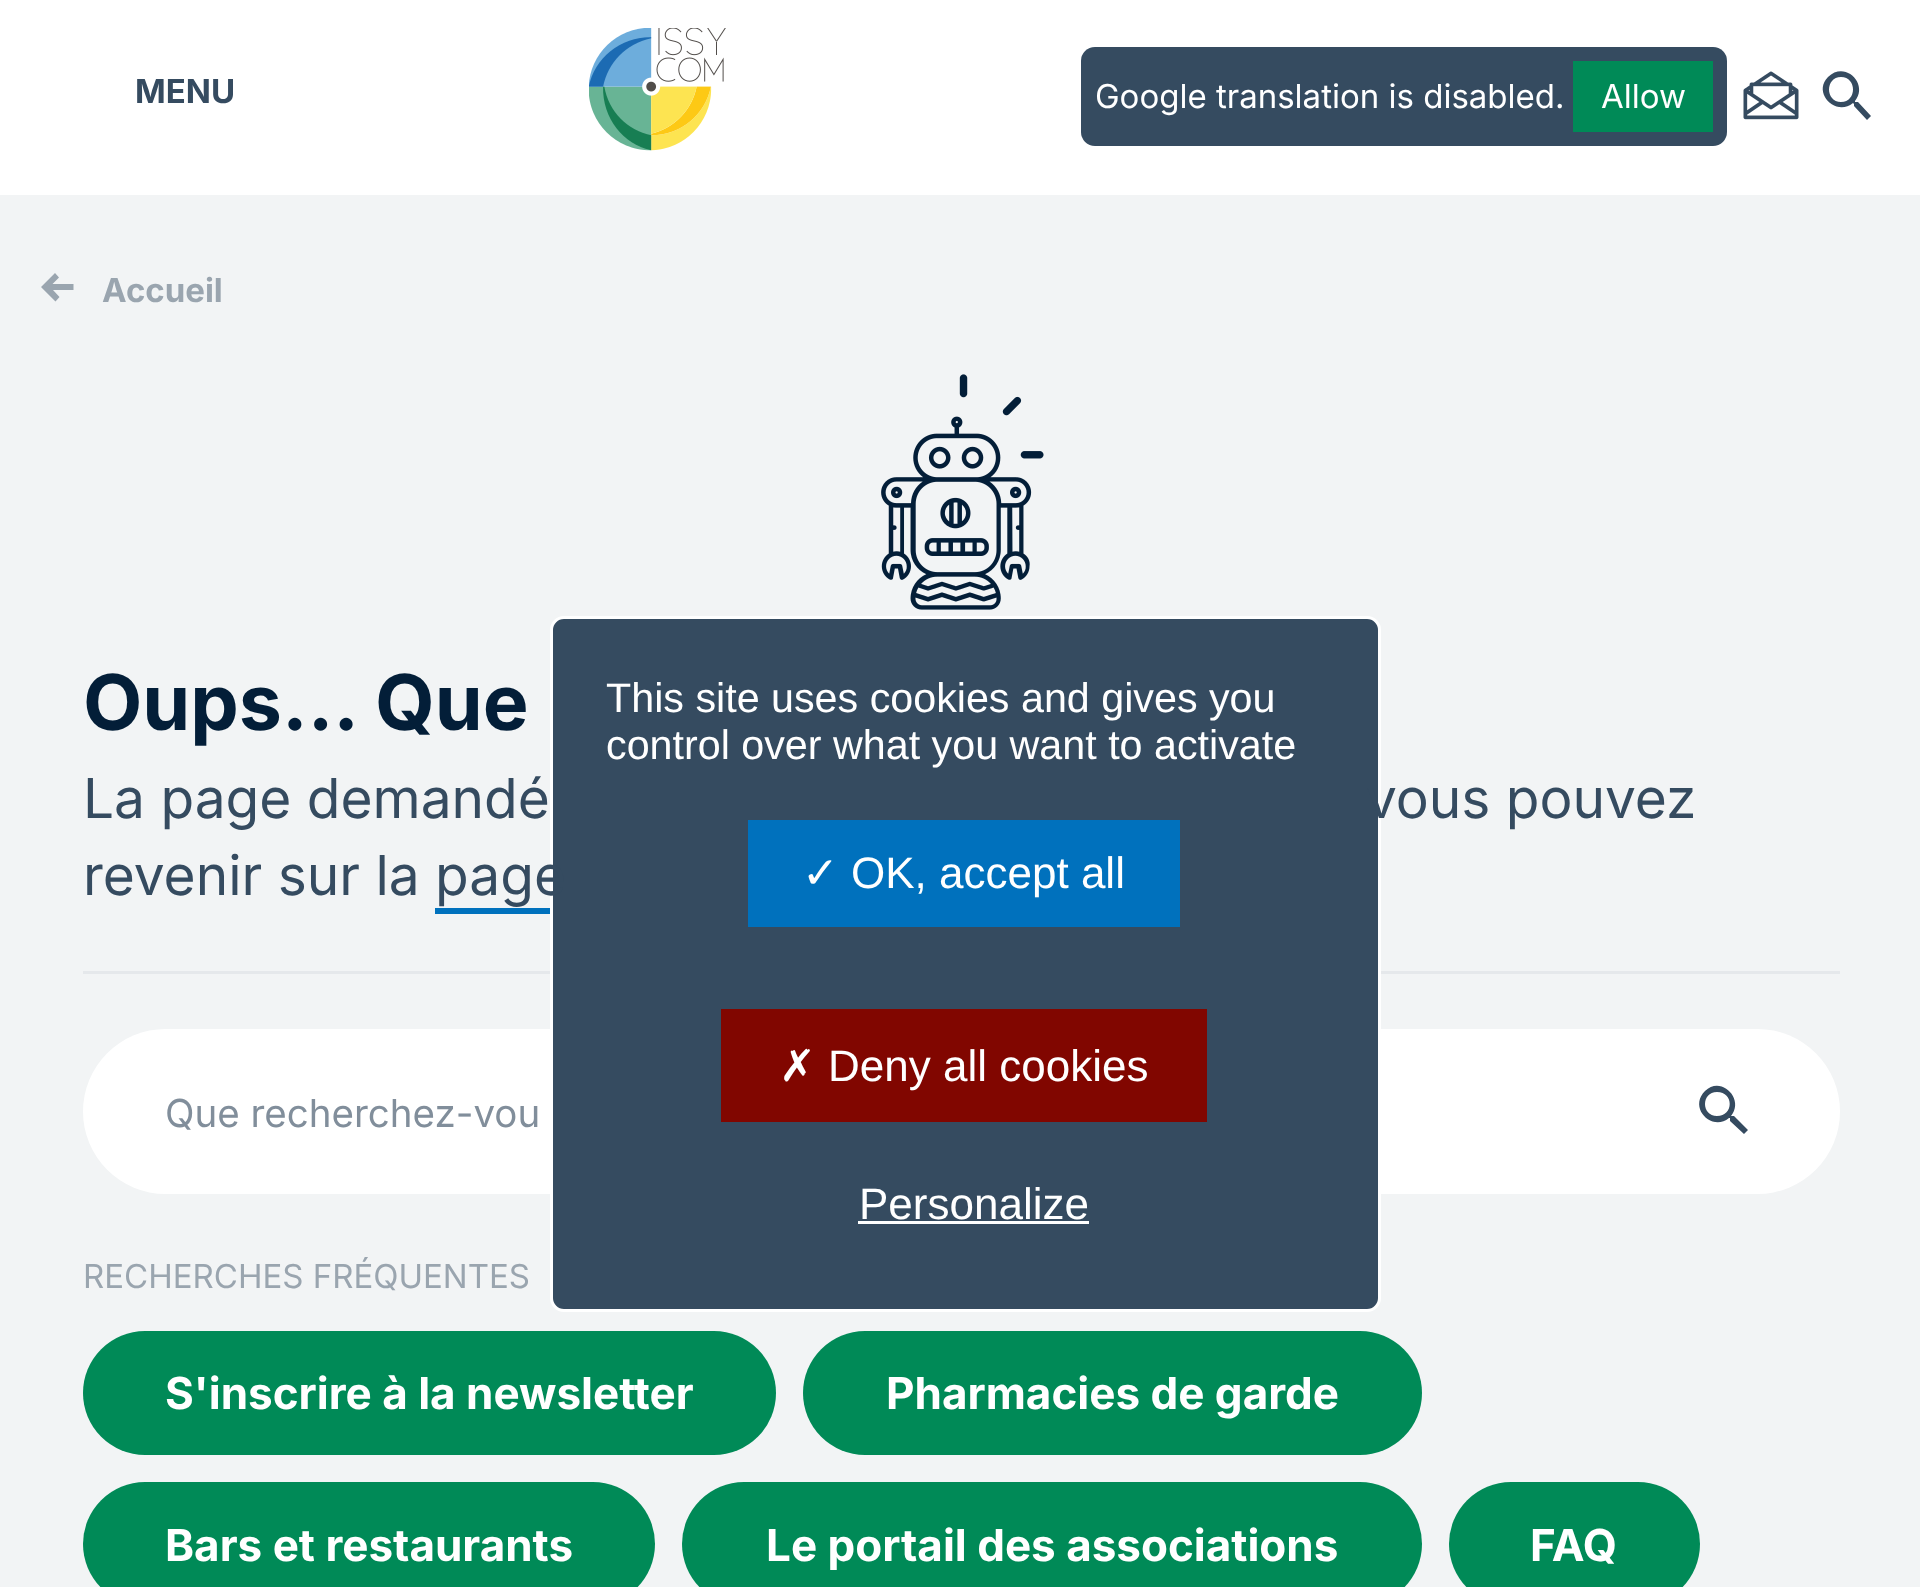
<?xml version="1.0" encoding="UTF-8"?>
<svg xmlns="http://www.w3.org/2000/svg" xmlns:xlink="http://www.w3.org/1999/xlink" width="1920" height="1587">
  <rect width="100%" height="100%" fill="#f2f4f5" />
  <rect width="1920" height="195" fill="#ffffff" />
  <image x="589" y="28" width="137" height="123" xlink:href="image1.png" />
  <rect x="1081" y="47" width="646" height="99" rx="14" fill="#354b60" />
  <rect x="1573" y="61" width="140" height="71" fill="#008a57" />
  <image x="1743" y="71" width="56" height="49" xlink:href="image2.png" />
  <path d="M 1858 102 h -3 v -1 c 14 -17 -10 -41 -27 -24 c -16 16 8 40 25 26 l 1 1 v 2 l 13 14 l 4 -4 z m -17 0 c -16 0 -16 -25 0 -25 c 16 0 16 25 0 25 z" fill="#354b60" />
  <path d="M 52.5 284 h 21 v 6 h -20.5 l 6.5 7 l -4 4.5 l -14.5 -14.5 l 14 -14 l 4 4.5 z" fill="#9aa5af" />
  <image x="881" y="374" width="163" height="236" xlink:href="image3.png" />
  <rect x="435" y="908" width="115" height="6" fill="#0071bd" />
  <rect x="83" y="971" width="1757" height="3" fill="#e5e8eb" />
  <rect x="83" y="1029" width="1757" height="165" rx="82.5" fill="#ffffff" />
  <path d="M 1734 1116 h -2 h -1 c 14 -17 -10 -41 -26 -25 c -17 17 7 41 24 27 h 1 v 3 l 14 13 l 4 -4 z m -17 0 c -16 0 -16 -24 0 -24 c 17 0 17 24 0 24 z" fill="#354b60" />
  <rect x="83" y="1331" width="693" height="124" rx="62" fill="#008a57" />
  <rect x="803" y="1331" width="619" height="124" rx="62" fill="#008a57" />
  <rect x="83" y="1482" width="572" height="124" rx="62" fill="#008a57" />
  <rect x="682" y="1482" width="740" height="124" rx="62" fill="#008a57" />
  <rect x="1449" y="1482" width="251" height="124" rx="62" fill="#008a57" />
  <rect x="551.5" y="617.5" width="828" height="693" rx="12.5" fill="#354b60" stroke="#ffffff" stroke-width="3" />
  <rect x="748" y="820" width="432" height="107" fill="#0071bd" />
  <rect x="721" y="1009" width="486" height="113" fill="#810600" />
  <rect x="858" y="1221" width="231" height="3" fill="#ffffff" />
  <text x="135" y="103" style="font-family: Inter; font-size: 33px; font-weight: bold; fill: #354b60">MENU</text>
  <text x="1095" y="108" style="font-family: Inter; font-size: 33px; fill: #ffffff">Google translation is disabled.</text>
  <text x="1601" y="108" style="font-family: Inter; font-size: 33px; fill: #ffffff">Allow</text>
  <text x="102" y="302" style="font-family: Inter; font-size: 33px; font-weight: bold; fill: #9aa5af">Accueil</text>
  <text x="83" y="730" style="font-family: Inter; font-size: 77px; font-weight: bold; fill: #031e38">Oups... Que</text>
  <text x="83" y="818" style="font-family: Inter; font-size: 55px; fill: #354b60">La page demandé</text>
  <text x="1366" y="818" style="font-family: Inter; font-size: 55px; fill: #354b60">vous pouvez</text>
  <text x="83" y="895" style="font-family: Inter; font-size: 55px; fill: #354b60">revenir sur la page</text>
  <text x="165" y="1127" style="font-family: Inter; font-size: 38.5px; fill: #818e9b">Que recherchez-vou</text>
  <text x="83" y="1288" style="font-family: Inter; font-size: 33px; fill: #9aa5af">RECHERCHES FRÉQUENTES</text>
  <text x="165" y="1409" style="font-family: Inter; font-size: 44px; font-weight: bold; fill: #ffffff">S'inscrire à la newsletter</text>
  <text x="886" y="1409" style="font-family: Inter; font-size: 44px; font-weight: bold; fill: #ffffff">Pharmacies de garde</text>
  <text x="165" y="1561" style="font-family: Inter; font-size: 44px; font-weight: bold; fill: #ffffff">Bars et restaurants</text>
  <text x="766" y="1561" style="font-family: Inter; font-size: 44px; font-weight: bold; fill: #ffffff">Le portail des associations</text>
  <text x="1530" y="1561" style="font-family: Inter; font-size: 44px; font-weight: bold; fill: #ffffff">FAQ</text>
  <text x="606" y="712" style="font-family: Liberation Sans; font-size: 41.25px; fill: #ffffff">This site uses cookies and gives you</text>
  <text x="606" y="759" style="font-family: Liberation Sans; font-size: 41.25px; fill: #ffffff">control over what you want to activate</text>
  <text x="802" y="888" style="font-family: DejaVu Sans; font-size: 44px; fill: #ffffff">✓</text>
  <text x="851" y="888" style="font-family: Liberation Sans; font-size: 44px; fill: #ffffff">OK, accept all</text>
  <text x="779" y="1081" style="font-family: DejaVu Sans; font-size: 44px; fill: #ffffff">✗</text>
  <text x="828" y="1081" style="font-family: Liberation Sans; font-size: 44px; fill: #ffffff">Deny all cookies</text>
  <text x="859" y="1219" style="font-family: Liberation Sans; font-size: 44px; fill: #ffffff">Personalize</text>
</svg>
